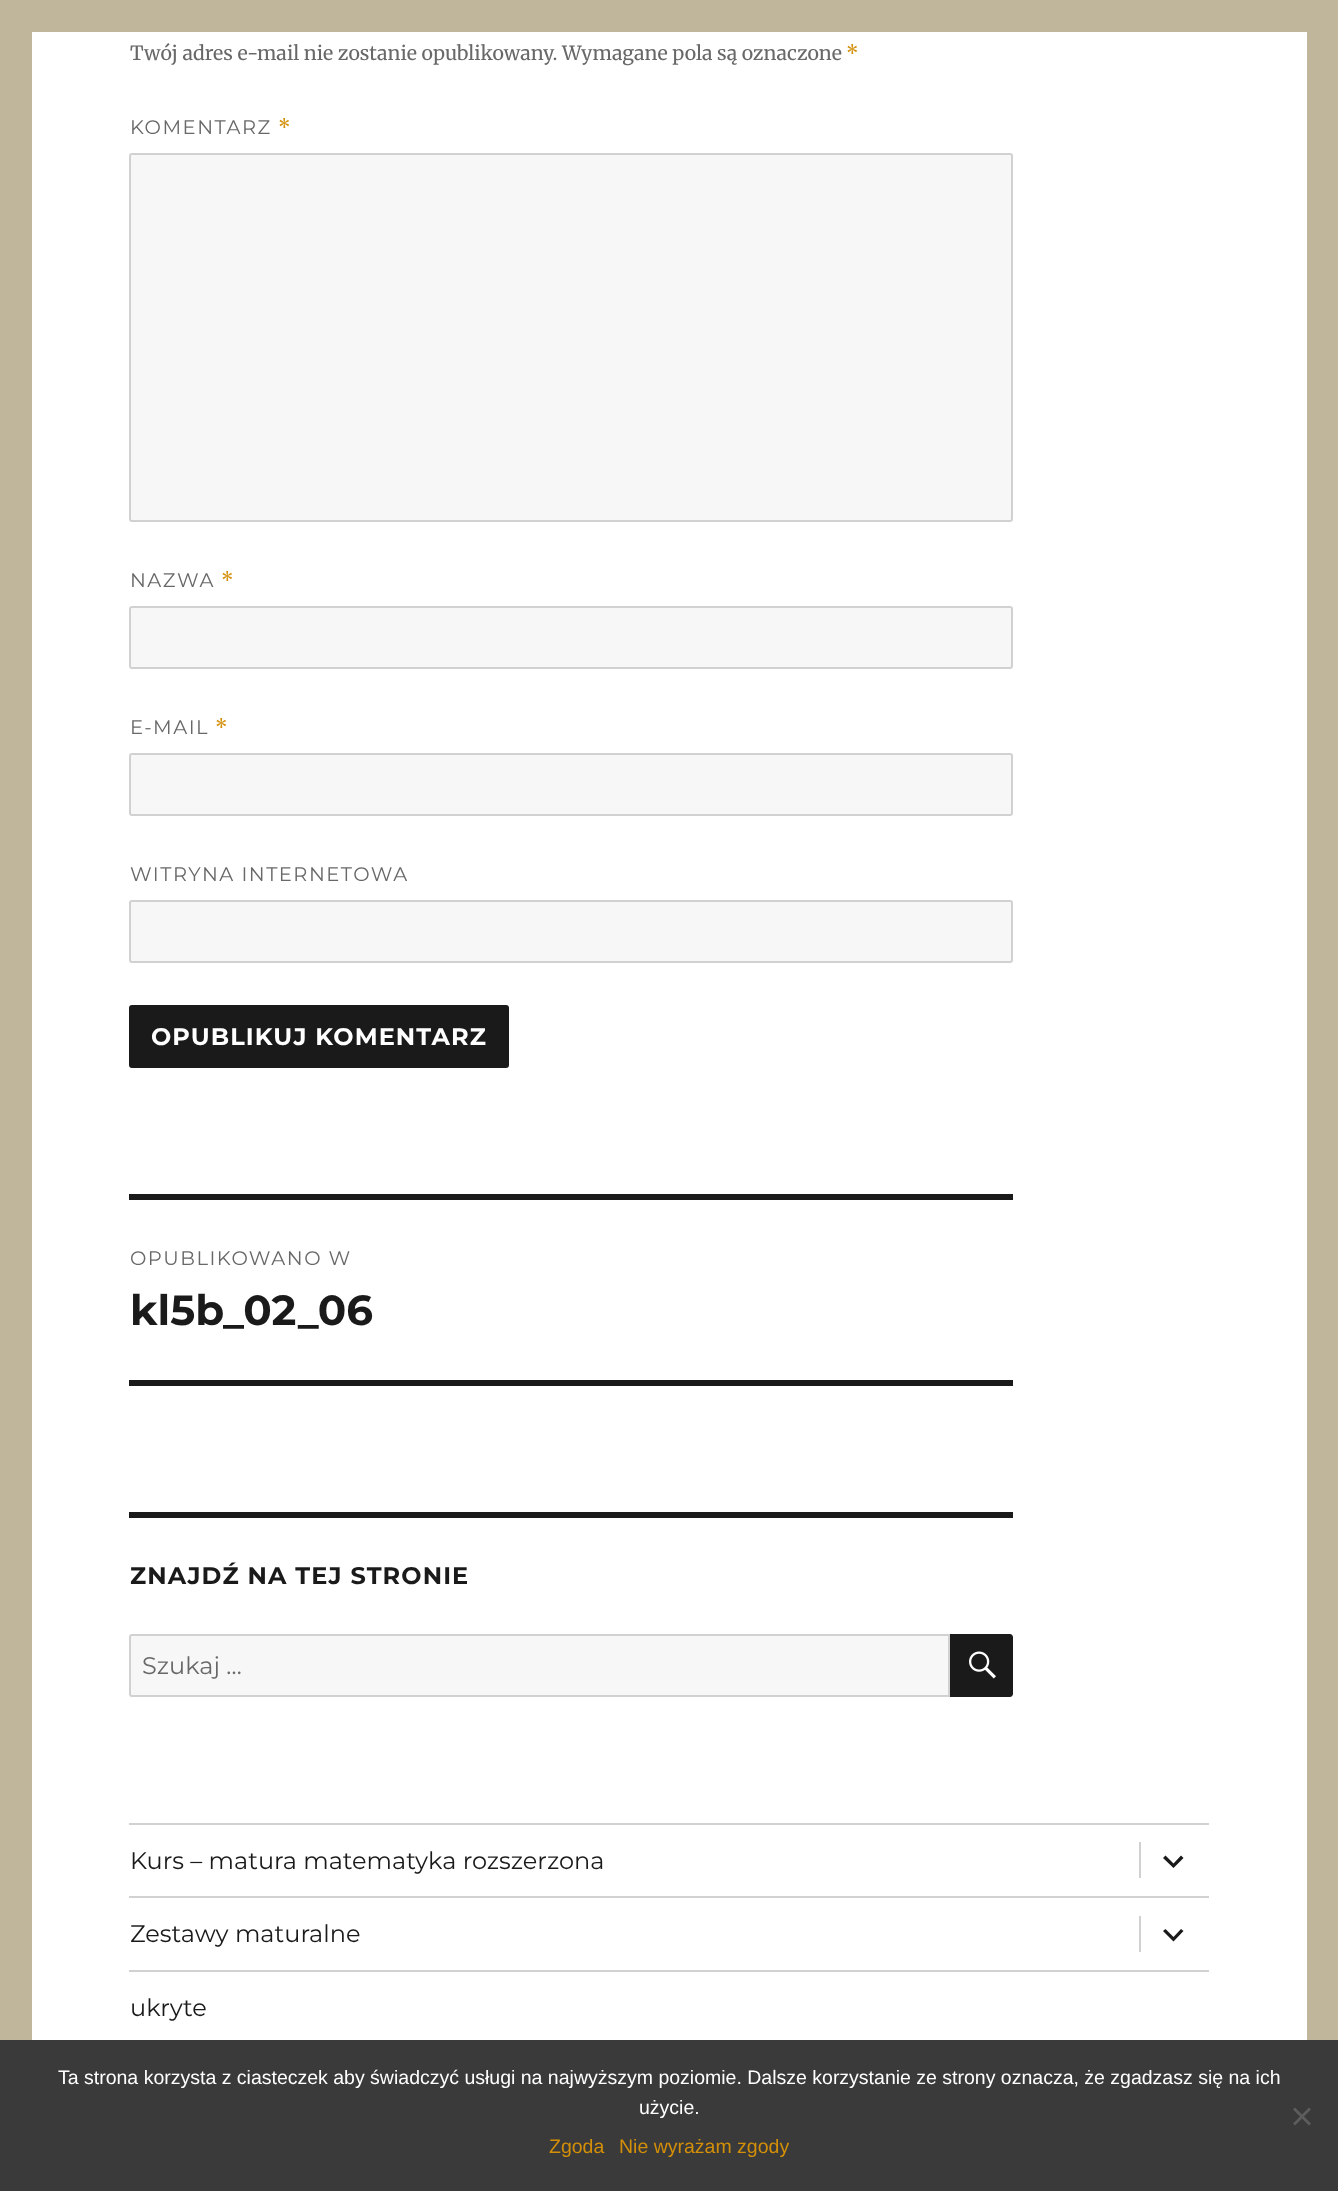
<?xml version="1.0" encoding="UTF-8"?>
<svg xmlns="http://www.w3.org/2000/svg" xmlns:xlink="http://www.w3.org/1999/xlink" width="1338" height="2191">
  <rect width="100%" height="100%" fill="#bfb69c" />
  <rect x="32" y="32" width="1275" height="2008" fill="#ffffff" />
  <rect x="130" y="154" width="882" height="367" rx="2" fill="#f7f7f7" stroke="#d1d1d1" stroke-width="2" />
  <rect x="130" y="607" width="882" height="61" rx="2" fill="#f7f7f7" stroke="#d1d1d1" stroke-width="2" />
  <rect x="130" y="754" width="882" height="61" rx="2" fill="#f7f7f7" stroke="#d1d1d1" stroke-width="2" />
  <rect x="130" y="901" width="882" height="61" rx="2" fill="#f7f7f7" stroke="#d1d1d1" stroke-width="2" />
  <rect x="129" y="1005" width="380" height="63" rx="3" fill="#1a1a1a" />
  <rect x="129" y="1194" width="884" height="6" fill="#1a1a1a" />
  <rect x="129" y="1380" width="884" height="6" fill="#1a1a1a" />
  <rect x="129" y="1512" width="884" height="6" fill="#1a1a1a" />
  <path d="M 132 1635 h 817 v 61 h -817 c -1 0 -2 -1 -2 -2 v -57 c 0 -1 1 -2 2 -2 z" fill="#f7f7f7" stroke="#d1d1d1" stroke-width="2" />
  <path d="M 950 1634 h 60 c 1.5 0 3 1.5 3 3 v 57 c 0 1.5 -1.5 3 -3 3 h -60 z" fill="#1a1a1a" />
  <image x="969" y="1651" width="27" height="28" xlink:href="image1.png" />
  <rect x="129" y="1823" width="1080" height="2" fill="#d1d1d1" />
  <rect x="1139" y="1842" width="2" height="36" fill="#d1d1d1" />
  <path d="M 1181 1855.5 l 2.5 2.5 l -10 10 l -10.5 -10 l 2.5 -2.5 l 8 8 z" fill="#1a1a1a" />
  <rect x="129" y="1896" width="1080" height="2" fill="#d1d1d1" />
  <rect x="1139" y="1916" width="2" height="36" fill="#d1d1d1" />
  <path d="M 1181 1929 l 2.5 2 l -10 10.5 l -10.5 -10.5 l 2.5 -2 l 8 8 z" fill="#1a1a1a" />
  <rect x="129" y="1970" width="1080" height="2" fill="#d1d1d1" />
  <rect y="2040" width="1338" height="151" fill="#3a3a3a" />
  <path d="M 1309 2107.5 l 2 2 l -16 16 l -2 -2 z" fill="#5d5d5d" />
  <path d="M 1293 2109.5 l 2 -2 l 16 16 l -2 2 z" fill="#5d5d5d" />
  <text x="130" y="60" style="font-family: Merriweather; font-size: 19.5px; fill: #686868">Twój adres e-mail nie zostanie opublikowany. Wymagane pola są oznaczone</text>
  <text x="846" y="60" style="font-family: Merriweather; font-size: 19.5px; fill: #d38f08">*</text>
  <text x="130" y="134" style="font-family: Montserrat; font-size: 19.5px; letter-spacing: 1.5px; fill: #686868">KOMENTARZ</text>
  <text x="278" y="134" style="font-family: Merriweather; font-size: 19.5px; letter-spacing: 1.5px; fill: #d38f08">*</text>
  <text x="130" y="587" style="font-family: Montserrat; font-size: 19.5px; letter-spacing: 1.5px; fill: #686868">NAZWA</text>
  <text x="221" y="587" style="font-family: Merriweather; font-size: 19.5px; letter-spacing: 1.5px; fill: #d38f08">*</text>
  <text x="130" y="734" style="font-family: Montserrat; font-size: 19.5px; letter-spacing: 1.5px; fill: #686868">E-MAIL</text>
  <text x="215" y="734" style="font-family: Merriweather; font-size: 19.5px; letter-spacing: 1.5px; fill: #d38f08">*</text>
  <text x="130" y="881" style="font-family: Montserrat; font-size: 19.5px; letter-spacing: 1.5px; fill: #686868">WITRYNA INTERNETOWA</text>
  <text x="151" y="1045" style="font-family: Montserrat; font-size: 24px; font-weight: bold; letter-spacing: 1.1px; fill: #ffffff">OPUBLIKUJ KOMENTARZ</text>
  <text x="130" y="1265" style="font-family: Montserrat; font-size: 19.5px; letter-spacing: 1.5px; fill: #686868">OPUBLIKOWANO W</text>
  <text x="130" y="1325" style="font-family: Montserrat; font-size: 42px; font-weight: bold; fill: #1a1a1a">kl5b_02_06</text>
  <text x="130" y="1584" style="font-family: Montserrat; font-size: 24px; font-weight: bold; letter-spacing: 1.1px; fill: #1a1a1a">ZNAJDŹ NA TEJ STRONIE</text>
  <text x="142" y="1674" style="font-family: Montserrat; font-size: 24px; fill: #686868">Szukaj …</text>
  <text x="130" y="1869" style="font-family: Montserrat; font-size: 24px; fill: #1a1a1a">Kurs – matura matematyka rozszerzona</text>
  <text x="130" y="1942" style="font-family: Montserrat; font-size: 24px; fill: #1a1a1a">Zestawy maturalne</text>
  <text x="130" y="2016" style="font-family: Montserrat; font-size: 24px; fill: #1a1a1a">ukryte</text>
  <text x="58" y="2084" style="font-family: Liberation Sans; font-size: 19.5px; fill: #ffffff">Ta strona korzysta z ciasteczek aby świadczyć usługi na najwyższym poziomie. Dalsze korzystanie ze strony oznacza, że zgadzasz się na ich</text>
  <text x="639" y="2114" style="font-family: Liberation Sans; font-size: 19.5px; fill: #ffffff">użycie.</text>
  <text x="549" y="2153" style="font-family: Liberation Sans; font-size: 19.5px; fill: #d38f08">Zgoda</text>
  <text x="619" y="2153" style="font-family: Liberation Sans; font-size: 19.5px; fill: #d38f08">Nie wyrażam zgody</text>
</svg>
